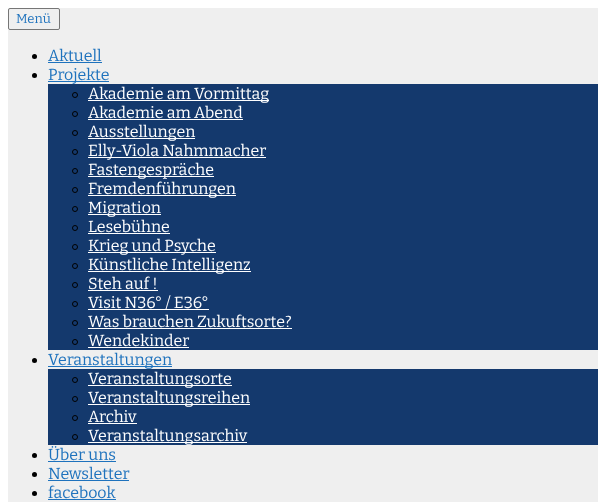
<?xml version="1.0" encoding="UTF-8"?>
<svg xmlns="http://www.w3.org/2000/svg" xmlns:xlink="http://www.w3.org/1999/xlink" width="606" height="503">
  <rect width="100%" height="100%" fill="#ffffff" />
  <rect x="8" y="8" width="590" height="494" fill="#efefef" />
  <rect x="8.5" y="8.5" width="51" height="21" rx="1.5" fill="none" stroke="#767676" />
  <circle cx="34.5" cy="56.5" r="2.5" fill="#000000" />
  <rect x="48" y="62" width="54" height="1" fill="#1e72bd" />
  <circle cx="34.5" cy="75.5" r="2.5" fill="#000000" />
  <rect x="48" y="81" width="61" height="1" fill="#1e72bd" />
  <rect x="48" y="84" width="550" height="266" fill="#14396d" />
  <circle cx="75" cy="95" r="2.5" fill="none" stroke="#000000" />
  <rect x="88" y="100" width="181" height="1" fill="#ffffff" />
  <circle cx="75" cy="114" r="2.5" fill="none" stroke="#000000" />
  <rect x="88" y="119" width="155" height="1" fill="#ffffff" />
  <circle cx="75" cy="133" r="2.5" fill="none" stroke="#000000" />
  <rect x="88" y="138" width="107" height="1" fill="#ffffff" />
  <circle cx="75" cy="152" r="2.5" fill="none" stroke="#000000" />
  <rect x="88" y="157" width="178" height="1" fill="#ffffff" />
  <circle cx="75" cy="171" r="2.5" fill="none" stroke="#000000" />
  <rect x="88" y="176" width="126" height="1" fill="#ffffff" />
  <circle cx="75" cy="190" r="2.5" fill="none" stroke="#000000" />
  <rect x="88" y="195" width="148" height="1" fill="#ffffff" />
  <circle cx="75" cy="209" r="2.5" fill="none" stroke="#000000" />
  <rect x="88" y="214" width="73" height="1" fill="#ffffff" />
  <circle cx="75" cy="228" r="2.5" fill="none" stroke="#000000" />
  <rect x="88" y="233" width="82" height="1" fill="#ffffff" />
  <circle cx="75" cy="247" r="2.5" fill="none" stroke="#000000" />
  <rect x="88" y="252" width="128" height="1" fill="#ffffff" />
  <circle cx="75" cy="266" r="2.5" fill="none" stroke="#000000" />
  <rect x="88" y="271" width="163" height="1" fill="#ffffff" />
  <circle cx="75" cy="285" r="2.5" fill="none" stroke="#000000" />
  <rect x="88" y="290" width="70" height="1" fill="#ffffff" />
  <circle cx="75" cy="304" r="2.5" fill="none" stroke="#000000" />
  <rect x="88" y="309" width="121" height="1" fill="#ffffff" />
  <circle cx="75" cy="323" r="2.5" fill="none" stroke="#000000" />
  <rect x="88" y="328" width="204" height="1" fill="#ffffff" />
  <circle cx="75" cy="342" r="2.5" fill="none" stroke="#000000" />
  <rect x="88" y="347" width="101" height="1" fill="#ffffff" />
  <circle cx="34.5" cy="360.5" r="2.5" fill="#000000" />
  <rect x="48" y="366" width="124" height="1" fill="#1e72bd" />
  <rect x="48" y="369" width="550" height="76" fill="#14396d" />
  <circle cx="75" cy="380" r="2.5" fill="none" stroke="#000000" />
  <rect x="88" y="385" width="144" height="1" fill="#ffffff" />
  <circle cx="75" cy="399" r="2.5" fill="none" stroke="#000000" />
  <rect x="88" y="404" width="162" height="1" fill="#ffffff" />
  <circle cx="75" cy="418" r="2.5" fill="none" stroke="#000000" />
  <rect x="88" y="423" width="49" height="1" fill="#ffffff" />
  <circle cx="75" cy="437" r="2.5" fill="none" stroke="#000000" />
  <rect x="88" y="442" width="159" height="1" fill="#ffffff" />
  <circle cx="34.5" cy="455.5" r="2.5" fill="#000000" />
  <rect x="48" y="461" width="68" height="1" fill="#1e72bd" />
  <circle cx="34.5" cy="474.5" r="2.5" fill="#000000" />
  <rect x="48" y="480" width="81" height="1" fill="#1e72bd" />
  <circle cx="34.5" cy="493.5" r="2.5" fill="#000000" />
  <rect x="48" y="499" width="68" height="1" fill="#1e72bd" />
  <text x="16" y="23" style="font-family: Bitter; font-size: 13px; fill: #1e72bd">Menü</text>
  <text x="48" y="61" style="font-family: Bitter; font-size: 16px; fill: #1e72bd">Aktuell</text>
  <text x="48" y="80" style="font-family: Bitter; font-size: 16px; fill: #1e72bd">Projekte</text>
  <text x="88" y="99" style="font-family: Bitter; font-size: 16px; fill: #ffffff">Akademie am Vormittag</text>
  <text x="88" y="118" style="font-family: Bitter; font-size: 16px; fill: #ffffff">Akademie am Abend</text>
  <text x="88" y="137" style="font-family: Bitter; font-size: 16px; fill: #ffffff">Ausstellungen</text>
  <text x="88" y="156" style="font-family: Bitter; font-size: 16px; fill: #ffffff">Elly-Viola Nahmmacher</text>
  <text x="88" y="175" style="font-family: Bitter; font-size: 16px; fill: #ffffff">Fastengespräche</text>
  <text x="88" y="194" style="font-family: Bitter; font-size: 16px; fill: #ffffff">Fremdenführungen</text>
  <text x="88" y="213" style="font-family: Bitter; font-size: 16px; fill: #ffffff">Migration</text>
  <text x="88" y="232" style="font-family: Bitter; font-size: 16px; fill: #ffffff">Lesebühne</text>
  <text x="88" y="251" style="font-family: Bitter; font-size: 16px; fill: #ffffff">Krieg und Psyche</text>
  <text x="88" y="270" style="font-family: Bitter; font-size: 16px; fill: #ffffff">Künstliche Intelligenz</text>
  <text x="88" y="289" style="font-family: Bitter; font-size: 16px; fill: #ffffff">Steh auf !</text>
  <text x="88" y="308" style="font-family: Bitter; font-size: 16px; fill: #ffffff">Visit N36° / E36°</text>
  <text x="88" y="327" style="font-family: Bitter; font-size: 16px; fill: #ffffff">Was brauchen Zukuftsorte?</text>
  <text x="88" y="346" style="font-family: Bitter; font-size: 16px; fill: #ffffff">Wendekinder</text>
  <text x="48" y="365" style="font-family: Bitter; font-size: 16px; fill: #1e72bd">Veranstaltungen</text>
  <text x="88" y="384" style="font-family: Bitter; font-size: 16px; fill: #ffffff">Veranstaltungsorte</text>
  <text x="88" y="403" style="font-family: Bitter; font-size: 16px; fill: #ffffff">Veranstaltungsreihen</text>
  <text x="88" y="422" style="font-family: Bitter; font-size: 16px; fill: #ffffff">Archiv</text>
  <text x="88" y="441" style="font-family: Bitter; font-size: 16px; fill: #ffffff">Veranstaltungsarchiv</text>
  <text x="48" y="460" style="font-family: Bitter; font-size: 16px; fill: #1e72bd">Über uns</text>
  <text x="48" y="479" style="font-family: Bitter; font-size: 16px; fill: #1e72bd">Newsletter</text>
  <text x="48" y="498" style="font-family: Bitter; font-size: 16px; fill: #1e72bd">facebook</text>
</svg>
